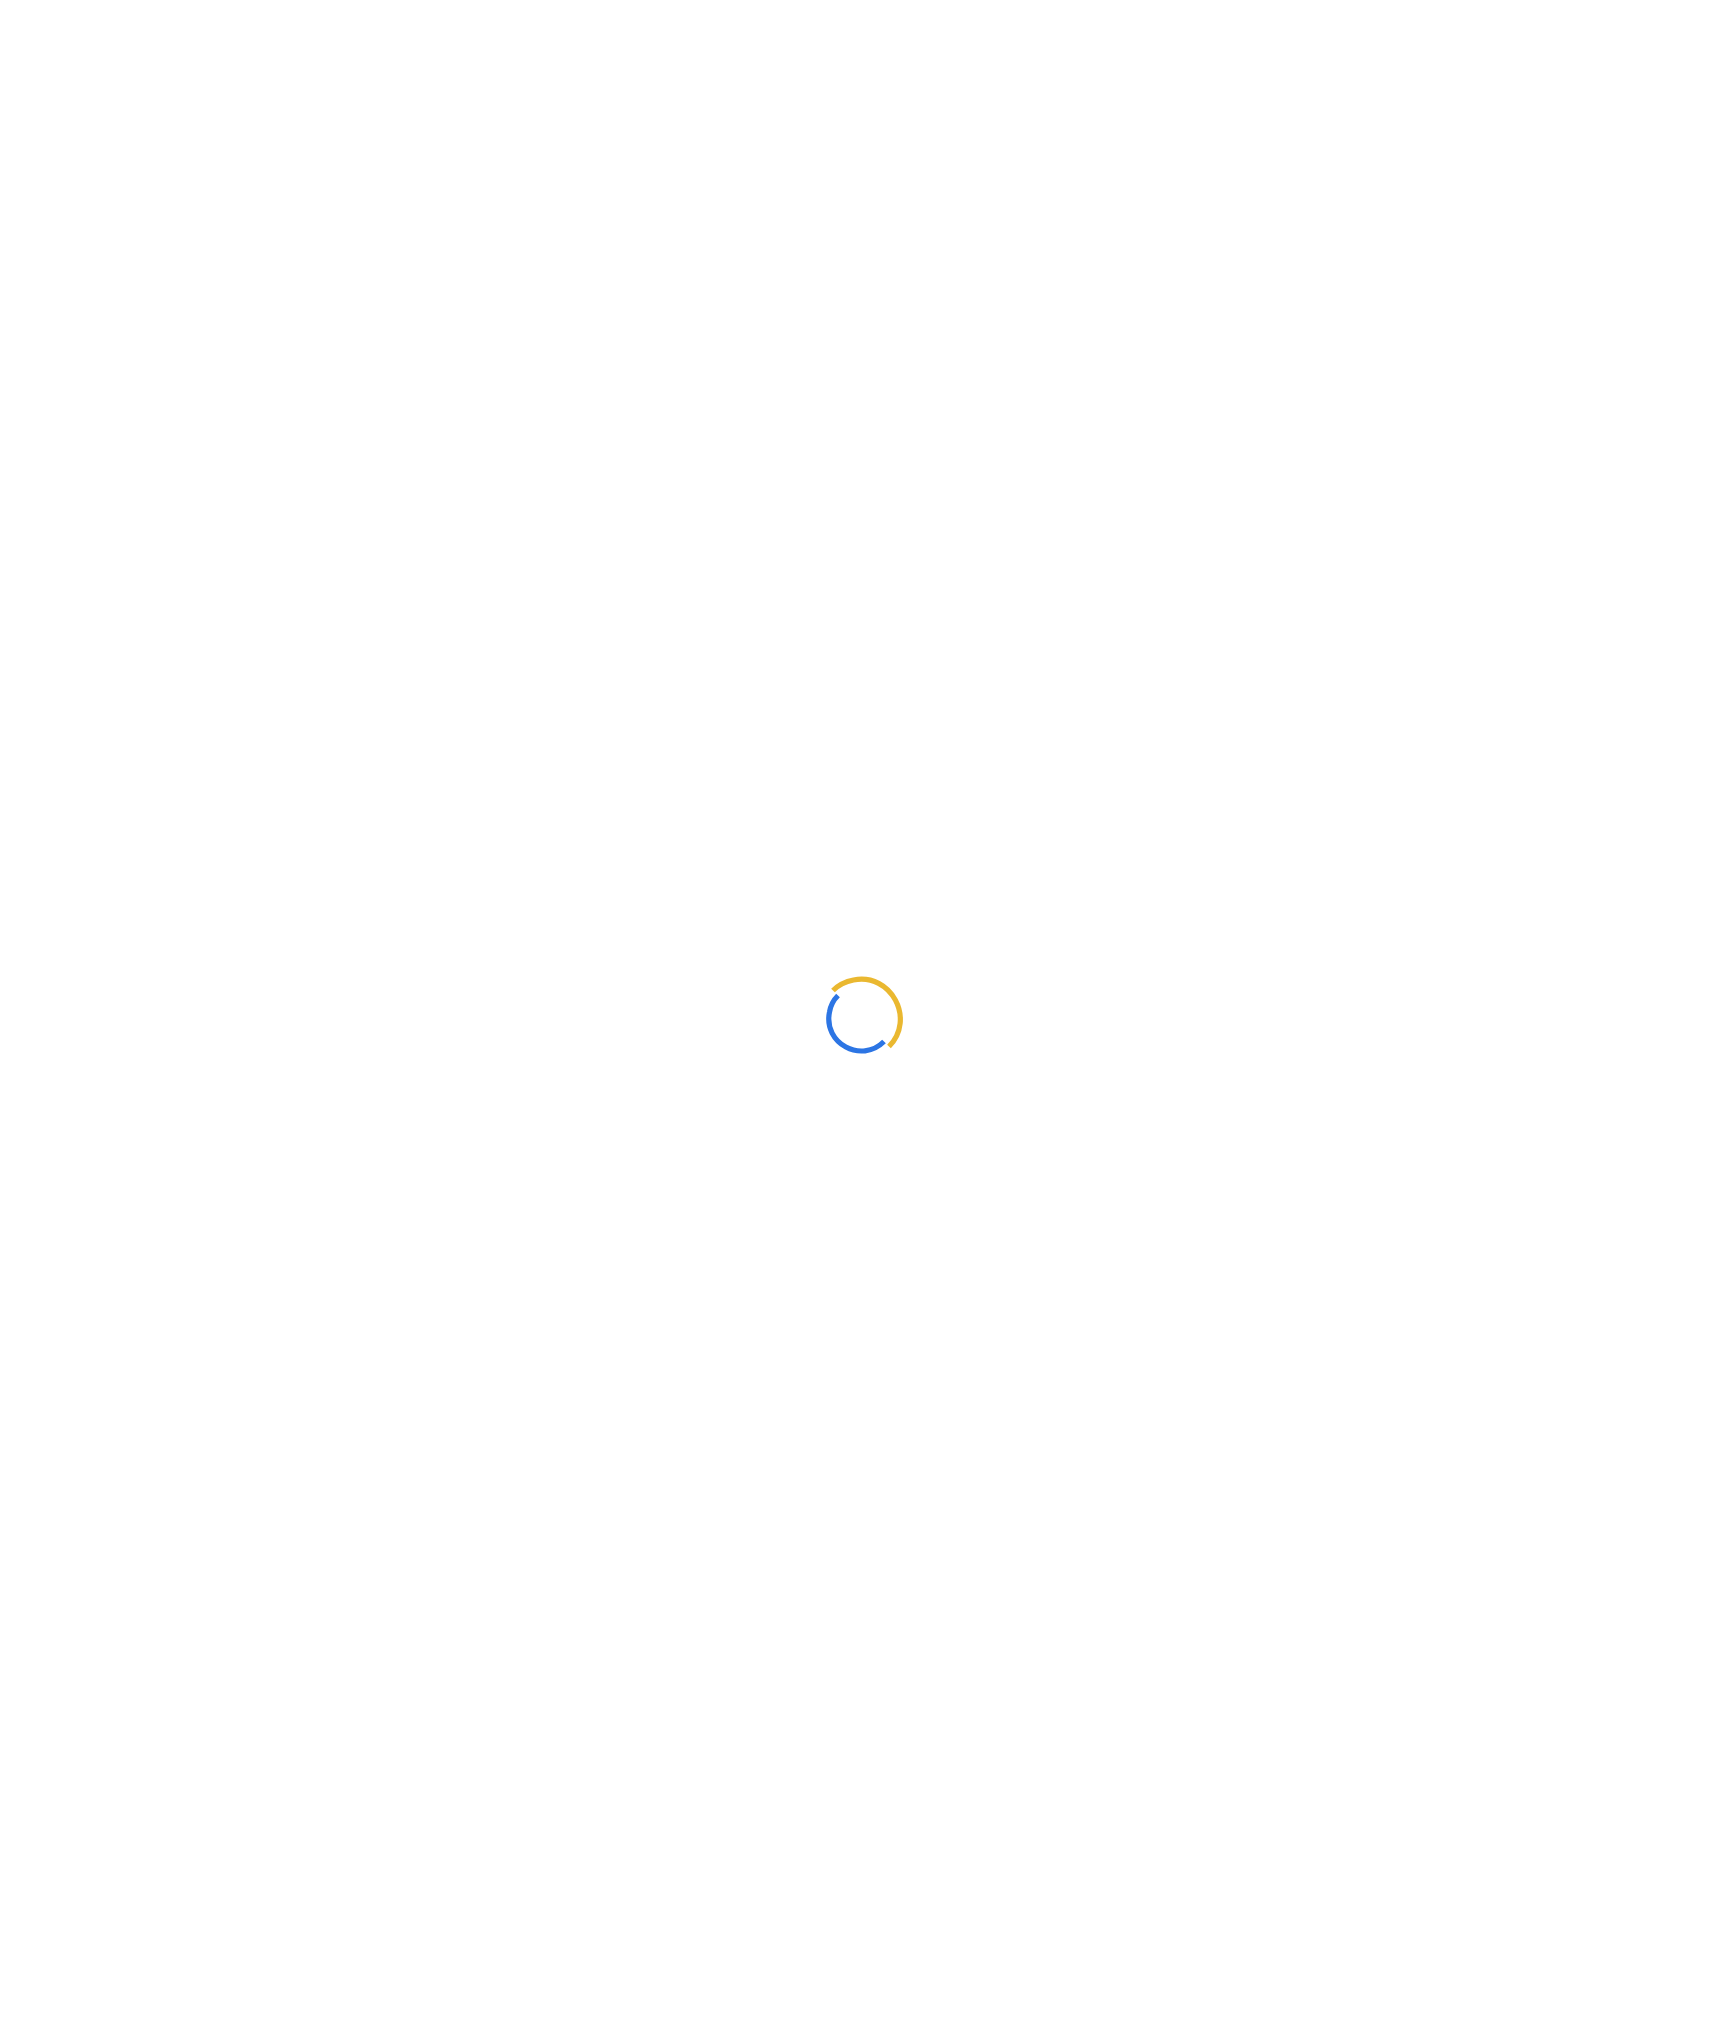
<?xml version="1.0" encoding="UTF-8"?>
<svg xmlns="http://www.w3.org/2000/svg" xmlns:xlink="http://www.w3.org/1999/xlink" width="1722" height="2036">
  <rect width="100%" height="100%" fill="#ffffff" />
  <path d="M 833 990.5 c 5.5 -5.5 12.5 -9 20.5 -10.5 c 37.5 -7.5 62.5 39 35.5 66.5" fill="none" stroke="#eab830" stroke-width="5.2" />
  <path d="M 884 1041.5 c -22.5 22.5 -61 2 -54.5 -29.5 c 1 -6 4 -12 8.5 -16.5 m 46 46 c -22.5 22.5 -61 2 -54.5 -29.5 c 1 -6 4 -12 8.5 -16.5" fill="none" stroke="#2c75e4" stroke-width="5.2" />
</svg>
